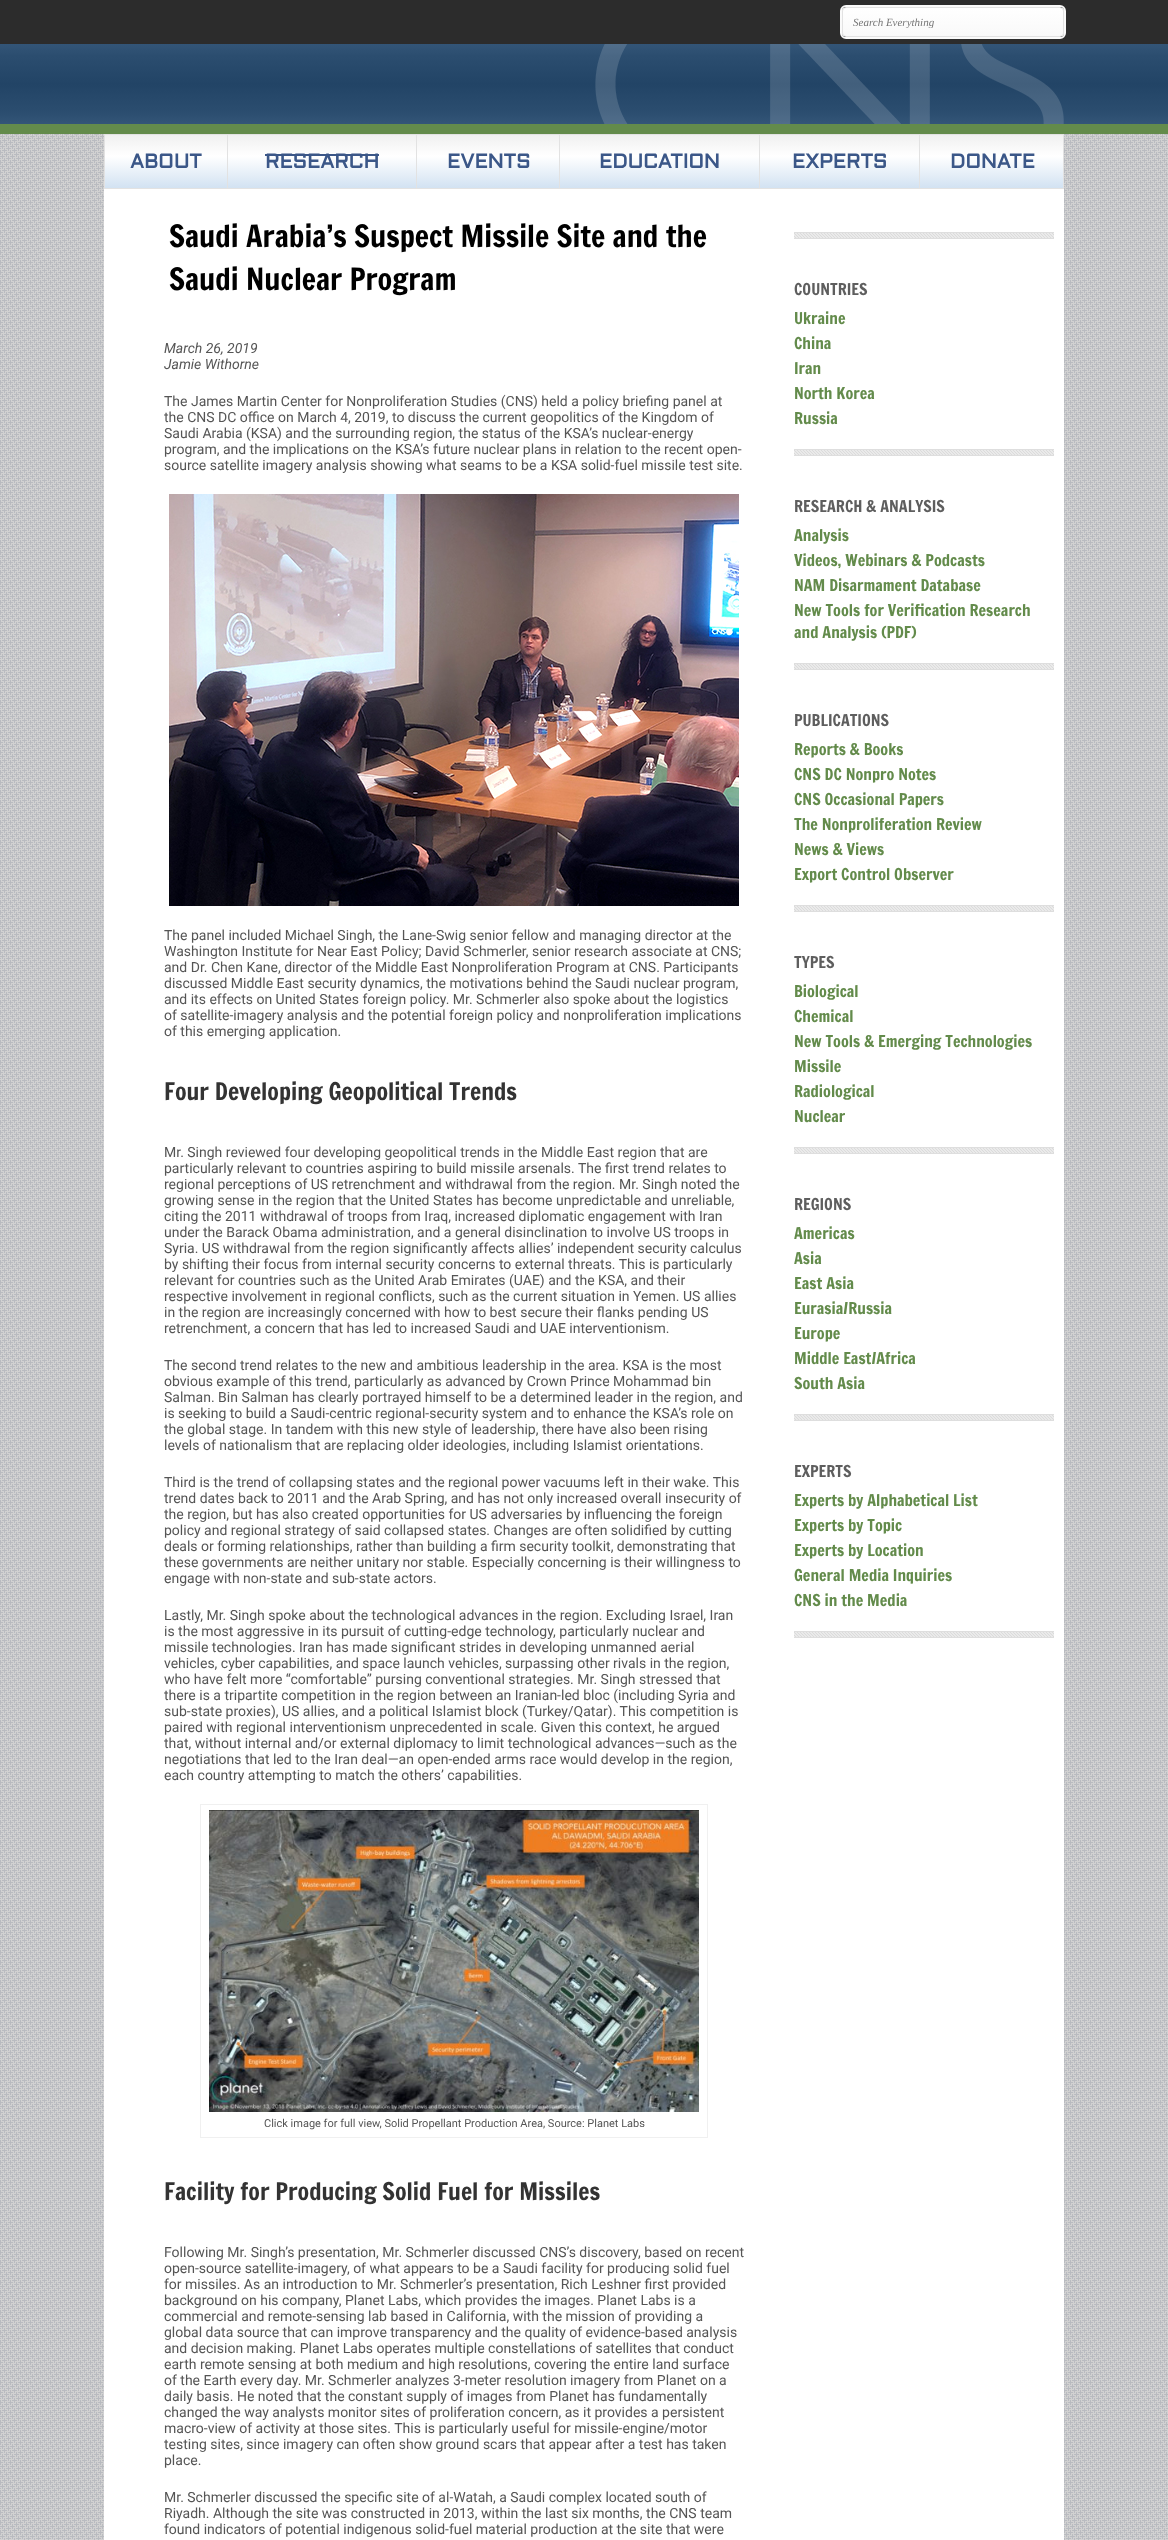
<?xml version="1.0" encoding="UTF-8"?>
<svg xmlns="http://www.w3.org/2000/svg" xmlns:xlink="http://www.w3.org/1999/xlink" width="1168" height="2540">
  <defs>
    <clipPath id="clip1"><rect x="842" y="7" width="222" height="30" rx="4" /></clipPath>
    <linearGradient id="g1" gradientUnits="userSpaceOnUse" x1="953" y1="8" x2="953" y2="36"><stop offset="0" stop-color="#ffffff" /><stop offset="1" stop-color="#f9f9f9" /></linearGradient>
    <linearGradient id="g2" gradientUnits="userSpaceOnUse" x1="584" y1="44" x2="584" y2="124"><stop offset="0" stop-color="#335577" /><stop offset="0.15" stop-color="#2b4d6f" /><stop offset="0.5" stop-color="#224466" /><stop offset="0.85" stop-color="#2b4d6f" /><stop offset="1" stop-color="#335577" /></linearGradient>
    <linearGradient id="g3" gradientUnits="userSpaceOnUse" x1="584" y1="135" x2="584" y2="188"><stop offset="0" stop-color="#f0f0f0" /><stop offset="0.4" stop-color="#ffffff" /><stop offset="1" stop-color="#d2e2f2" /></linearGradient>
    <clipPath id="clip2"><rect x="853" y="16" width="200" height="12" /></clipPath>
  </defs>
  <rect width="100%" height="100%" fill="#ffffff" />
  <image x="0" y="134" width="1168" height="2406" xlink:href="image1.png" />
  <rect width="1168" height="44" fill="#2c2c2c" />
  <g clip-path="url(#clip1)">
    <rect x="842" y="8" width="222" height="28" fill="url(#g1)" />
  </g>
  <rect x="842.5" y="7.5" width="221" height="29" rx="3.5" fill="none" stroke="#e2e2e2" />
  <rect x="841" y="6" width="224" height="32" rx="5" fill="none" stroke="#fafafa" stroke-width="2" />
  <rect y="44" width="1168" height="80" fill="url(#g2)" />
  <rect y="124" width="1168" height="10" fill="#638b4b" />
  <image x="595" y="44" width="469" height="80" xlink:href="image2.png" />
  <rect x="105" y="135" width="958" height="53" fill="url(#g3)" />
  <rect x="104.5" y="134.5" width="959" height="54" fill="none" stroke="#e2e2e2" />
  <rect x="227" y="134" width="1" height="55" fill="#e2e2e2" />
  <rect x="265" y="154" width="114" height="2" fill="#3b5788" />
  <rect x="416" y="134" width="1" height="55" fill="#e2e2e2" />
  <rect x="559" y="134" width="1" height="55" fill="#e2e2e2" />
  <rect x="759" y="134" width="1" height="55" fill="#e2e2e2" />
  <rect x="919" y="134" width="1" height="55" fill="#e2e2e2" />
  <image x="169" y="494" width="570" height="412" xlink:href="image3.png" />
  <rect x="200.5" y="1804.5" width="507" height="333" fill="none" stroke="#f0f0f0" />
  <image x="209" y="1810" width="490" height="302" xlink:href="image4.png" />
  <rect x="794" y="233" width="260" height="5" fill="#eeeeee" />
  <image x="794" y="233" width="260" height="5" xlink:href="image5.png" />
  <rect x="794" y="232" width="260" height="1" fill="#dedede" />
  <rect x="794" y="238" width="260" height="1" fill="#dedede" />
  <rect x="794" y="450" width="260" height="5" fill="#eeeeee" />
  <image x="794" y="450" width="260" height="5" xlink:href="image5.png" />
  <rect x="794" y="449" width="260" height="1" fill="#dedede" />
  <rect x="794" y="455" width="260" height="1" fill="#dedede" />
  <rect x="794" y="664" width="260" height="5" fill="#eeeeee" />
  <image x="794" y="664" width="260" height="5" xlink:href="image5.png" />
  <rect x="794" y="663" width="260" height="1" fill="#dedede" />
  <rect x="794" y="669" width="260" height="1" fill="#dedede" />
  <rect x="794" y="906" width="260" height="5" fill="#eeeeee" />
  <image x="794" y="906" width="260" height="5" xlink:href="image5.png" />
  <rect x="794" y="905" width="260" height="1" fill="#dedede" />
  <rect x="794" y="911" width="260" height="1" fill="#dedede" />
  <rect x="794" y="1148" width="260" height="5" fill="#eeeeee" />
  <image x="794" y="1148" width="260" height="5" xlink:href="image5.png" />
  <rect x="794" y="1147" width="260" height="1" fill="#dedede" />
  <rect x="794" y="1153" width="260" height="1" fill="#dedede" />
  <rect x="794" y="1415" width="260" height="5" fill="#eeeeee" />
  <image x="794" y="1415" width="260" height="5" xlink:href="image5.png" />
  <rect x="794" y="1414" width="260" height="1" fill="#dedede" />
  <rect x="794" y="1420" width="260" height="1" fill="#dedede" />
  <rect x="794" y="1632" width="260" height="5" fill="#eeeeee" />
  <image x="794" y="1632" width="260" height="5" xlink:href="image5.png" />
  <rect x="794" y="1631" width="260" height="1" fill="#dedede" />
  <rect x="794" y="1637" width="260" height="1" fill="#dedede" />
  <g clip-path="url(#clip2)">
    <text x="853" y="26" style="font-family: Liberation Serif; font-size: 11px; font-style: italic; fill: #757575">Search Everything</text>
  </g>
  <text x="130" y="168" style="font-family: Aldrich; font-size: 20px; font-weight: bold; fill: #3b5788">ABOUT</text>
  <text x="265" y="168" style="font-family: Aldrich; font-size: 20px; font-weight: bold; fill: #3b5788">RESEARCH</text>
  <text x="447" y="168" style="font-family: Aldrich; font-size: 20px; font-weight: bold; fill: #3b5788">EVENTS</text>
  <text x="599" y="168" style="font-family: Aldrich; font-size: 20px; font-weight: bold; fill: #3b5788">EDUCATION</text>
  <text x="792" y="168" style="font-family: Aldrich; font-size: 20px; font-weight: bold; fill: #3b5788">EXPERTS</text>
  <text x="950" y="168" style="font-family: Aldrich; font-size: 20px; font-weight: bold; fill: #3b5788">DONATE</text>
  <text x="169" y="247" style="font-family: Francois One; font-size: 30px; fill: #000000">Saudi Arabia’s Suspect Missile Site and the</text>
  <text x="169" y="290" style="font-family: Francois One; font-size: 30px; fill: #000000">Saudi Nuclear Program</text>
  <text x="164" y="353" style="font-family: Roboto; font-size: 14px; font-style: italic; fill: #555555">March 26, 2019</text>
  <text x="164" y="369" style="font-family: Roboto; font-size: 14px; font-style: italic; fill: #555555">Jamie Withorne</text>
  <text x="164" y="406" style="font-family: Roboto; font-size: 14px; fill: #555555">The James Martin Center for Nonproliferation Studies (CNS) held a policy briefing panel at</text>
  <text x="164" y="422" style="font-family: Roboto; font-size: 14px; fill: #555555">the CNS DC office on March 4, 2019, to discuss the current geopolitics of the Kingdom of</text>
  <text x="164" y="438" style="font-family: Roboto; font-size: 14px; fill: #555555">Saudi Arabia (KSA) and the surrounding region, the status of the KSA’s nuclear-energy</text>
  <text x="164" y="454" style="font-family: Roboto; font-size: 14px; fill: #555555">program, and the implications on the KSA’s future nuclear plans in relation to the recent open-</text>
  <text x="164" y="470" style="font-family: Roboto; font-size: 14px; fill: #555555">source satellite imagery analysis showing what seams to be a KSA solid-fuel missile test site.</text>
  <text x="164" y="940" style="font-family: Roboto; font-size: 14px; fill: #555555">The panel included Michael Singh, the Lane-Swig senior fellow and managing director at the</text>
  <text x="164" y="956" style="font-family: Roboto; font-size: 14px; fill: #555555">Washington Institute for Near East Policy; David Schmerler, senior research associate at CNS;</text>
  <text x="164" y="972" style="font-family: Roboto; font-size: 14px; fill: #555555">and Dr. Chen Kane, director of the Middle East Nonproliferation Program at CNS. Participants</text>
  <text x="164" y="988" style="font-family: Roboto; font-size: 14px; fill: #555555">discussed Middle East security dynamics, the motivations behind the Saudi nuclear program,</text>
  <text x="164" y="1004" style="font-family: Roboto; font-size: 14px; fill: #555555">and its effects on United States foreign policy. Mr. Schmerler also spoke about the logistics</text>
  <text x="164" y="1020" style="font-family: Roboto; font-size: 14px; fill: #555555">of satellite-imagery analysis and the potential foreign policy and nonproliferation implications</text>
  <text x="164" y="1036" style="font-family: Roboto; font-size: 14px; fill: #555555">of this emerging application.</text>
  <text x="164" y="1100" style="font-family: Francois One; font-size: 23.75px; fill: #333333">Four Developing Geopolitical Trends</text>
  <text x="164" y="1157" style="font-family: Roboto; font-size: 14px; fill: #555555">Mr. Singh reviewed four developing geopolitical trends in the Middle East region that are</text>
  <text x="164" y="1173" style="font-family: Roboto; font-size: 14px; fill: #555555">particularly relevant to countries aspiring to build missile arsenals. The first trend relates to</text>
  <text x="164" y="1189" style="font-family: Roboto; font-size: 14px; fill: #555555">regional perceptions of US retrenchment and withdrawal from the region. Mr. Singh noted the</text>
  <text x="164" y="1205" style="font-family: Roboto; font-size: 14px; fill: #555555">growing sense in the region that the United States has become unpredictable and unreliable,</text>
  <text x="164" y="1221" style="font-family: Roboto; font-size: 14px; fill: #555555">citing the 2011 withdrawal of troops from Iraq, increased diplomatic engagement with Iran</text>
  <text x="164" y="1237" style="font-family: Roboto; font-size: 14px; fill: #555555">under the Barack Obama administration, and a general disinclination to involve US troops in</text>
  <text x="164" y="1253" style="font-family: Roboto; font-size: 14px; fill: #555555">Syria. US withdrawal from the region significantly affects allies’ independent security calculus</text>
  <text x="164" y="1269" style="font-family: Roboto; font-size: 14px; fill: #555555">by shifting their focus from internal security concerns to external threats. This is particularly</text>
  <text x="164" y="1285" style="font-family: Roboto; font-size: 14px; fill: #555555">relevant for countries such as the United Arab Emirates (UAE) and the KSA, and their</text>
  <text x="164" y="1301" style="font-family: Roboto; font-size: 14px; fill: #555555">respective involvement in regional conflicts, such as the current situation in Yemen. US allies</text>
  <text x="164" y="1317" style="font-family: Roboto; font-size: 14px; fill: #555555">in the region are increasingly concerned with how to best secure their flanks pending US</text>
  <text x="164" y="1333" style="font-family: Roboto; font-size: 14px; fill: #555555">retrenchment, a concern that has led to increased Saudi and UAE interventionism.</text>
  <text x="164" y="1370" style="font-family: Roboto; font-size: 14px; fill: #555555">The second trend relates to the new and ambitious leadership in the area. KSA is the most</text>
  <text x="164" y="1386" style="font-family: Roboto; font-size: 14px; fill: #555555">obvious example of this trend, particularly as advanced by Crown Prince Mohammad bin</text>
  <text x="164" y="1402" style="font-family: Roboto; font-size: 14px; fill: #555555">Salman. Bin Salman has clearly portrayed himself to be a determined leader in the region, and</text>
  <text x="164" y="1418" style="font-family: Roboto; font-size: 14px; fill: #555555">is seeking to build a Saudi-centric regional-security system and to enhance the KSA’s role on</text>
  <text x="164" y="1434" style="font-family: Roboto; font-size: 14px; fill: #555555">the global stage. In tandem with this new style of leadership, there have also been rising</text>
  <text x="164" y="1450" style="font-family: Roboto; font-size: 14px; fill: #555555">levels of nationalism that are replacing older ideologies, including Islamist orientations.</text>
  <text x="164" y="1487" style="font-family: Roboto; font-size: 14px; fill: #555555">Third is the trend of collapsing states and the regional power vacuums left in their wake. This</text>
  <text x="164" y="1503" style="font-family: Roboto; font-size: 14px; fill: #555555">trend dates back to 2011 and the Arab Spring, and has not only increased overall insecurity of</text>
  <text x="164" y="1519" style="font-family: Roboto; font-size: 14px; fill: #555555">the region, but has also created opportunities for US adversaries by influencing the foreign</text>
  <text x="164" y="1535" style="font-family: Roboto; font-size: 14px; fill: #555555">policy and regional strategy of said collapsed states. Changes are often solidified by cutting</text>
  <text x="164" y="1551" style="font-family: Roboto; font-size: 14px; fill: #555555">deals or forming relationships, rather than building a firm security toolkit, demonstrating that</text>
  <text x="164" y="1567" style="font-family: Roboto; font-size: 14px; fill: #555555">these governments are neither unitary nor stable. Especially concerning is their willingness to</text>
  <text x="164" y="1583" style="font-family: Roboto; font-size: 14px; fill: #555555">engage with non-state and sub-state actors.</text>
  <text x="164" y="1620" style="font-family: Roboto; font-size: 14px; fill: #555555">Lastly, Mr. Singh spoke about the technological advances in the region. Excluding Israel, Iran</text>
  <text x="164" y="1636" style="font-family: Roboto; font-size: 14px; fill: #555555">is the most aggressive in its pursuit of cutting-edge technology, particularly nuclear and</text>
  <text x="164" y="1652" style="font-family: Roboto; font-size: 14px; fill: #555555">missile technologies. Iran has made significant strides in developing unmanned aerial</text>
  <text x="164" y="1668" style="font-family: Roboto; font-size: 14px; fill: #555555">vehicles, cyber capabilities, and space launch vehicles, surpassing other rivals in the region,</text>
  <text x="164" y="1684" style="font-family: Roboto; font-size: 14px; fill: #555555">who have felt more “comfortable” pursing conventional strategies. Mr. Singh stressed that</text>
  <text x="164" y="1700" style="font-family: Roboto; font-size: 14px; fill: #555555">there is a tripartite competition in the region between an Iranian-led bloc (including Syria and</text>
  <text x="164" y="1716" style="font-family: Roboto; font-size: 14px; fill: #555555">sub-state proxies), US allies, and a political Islamist block (Turkey/Qatar). This competition is</text>
  <text x="164" y="1732" style="font-family: Roboto; font-size: 14px; fill: #555555">paired with regional interventionism unprecedented in scale. Given this context, he argued</text>
  <text x="164" y="1748" style="font-family: Roboto; font-size: 14px; fill: #555555">that, without internal and/or external diplomacy to limit technological advances—such as the</text>
  <text x="164" y="1764" style="font-family: Roboto; font-size: 14px; fill: #555555">negotiations that led to the Iran deal—an open-ended arms race would develop in the region,</text>
  <text x="164" y="1780" style="font-family: Roboto; font-size: 14px; fill: #555555">each country attempting to match the others’ capabilities.</text>
  <text x="264" y="2127" style="font-family: Roboto; font-size: 11px; fill: #555555">Click image for full view, Solid Propellant Production Area, Source: Planet Labs</text>
  <text x="164" y="2200" style="font-family: Francois One; font-size: 23.75px; fill: #333333">Facility for Producing Solid Fuel for Missiles</text>
  <text x="164" y="2257" style="font-family: Roboto; font-size: 14px; fill: #555555">Following Mr. Singh’s presentation, Mr. Schmerler discussed CNS’s discovery, based on recent</text>
  <text x="164" y="2273" style="font-family: Roboto; font-size: 14px; fill: #555555">open-source satellite-imagery, of what appears to be a Saudi facility for producing solid fuel</text>
  <text x="164" y="2289" style="font-family: Roboto; font-size: 14px; fill: #555555">for missiles. As an introduction to Mr. Schmerler’s presentation, Rich Leshner first provided</text>
  <text x="164" y="2305" style="font-family: Roboto; font-size: 14px; fill: #555555">background on his company, Planet Labs, which provides the images. Planet Labs is a</text>
  <text x="164" y="2321" style="font-family: Roboto; font-size: 14px; fill: #555555">commercial and remote-sensing lab based in California, with the mission of providing a</text>
  <text x="164" y="2337" style="font-family: Roboto; font-size: 14px; fill: #555555">global data source that can improve transparency and the quality of evidence-based analysis</text>
  <text x="164" y="2353" style="font-family: Roboto; font-size: 14px; fill: #555555">and decision making. Planet Labs operates multiple constellations of satellites that conduct</text>
  <text x="164" y="2369" style="font-family: Roboto; font-size: 14px; fill: #555555">earth remote sensing at both medium and high resolutions, covering the entire land surface</text>
  <text x="164" y="2385" style="font-family: Roboto; font-size: 14px; fill: #555555">of the Earth every day. Mr. Schmerler analyzes 3-meter resolution imagery from Planet on a</text>
  <text x="164" y="2401" style="font-family: Roboto; font-size: 14px; fill: #555555">daily basis. He noted that the constant supply of images from Planet has fundamentally</text>
  <text x="164" y="2417" style="font-family: Roboto; font-size: 14px; fill: #555555">changed the way analysts monitor sites of proliferation concern, as it provides a persistent</text>
  <text x="164" y="2433" style="font-family: Roboto; font-size: 14px; fill: #555555">macro-view of activity at those sites. This is particularly useful for missile-engine/motor</text>
  <text x="164" y="2449" style="font-family: Roboto; font-size: 14px; fill: #555555">testing sites, since imagery can often show ground scars that appear after a test has taken</text>
  <text x="164" y="2465" style="font-family: Roboto; font-size: 14px; fill: #555555">place.</text>
  <text x="164" y="2502" style="font-family: Roboto; font-size: 14px; fill: #555555">Mr. Schmerler discussed the specific site of al-Watah, a Saudi complex located south of</text>
  <text x="164" y="2518" style="font-family: Roboto; font-size: 14px; fill: #555555">Riyadh. Although the site was constructed in 2013, within the last six months, the CNS team</text>
  <text x="164" y="2534" style="font-family: Roboto; font-size: 14px; fill: #555555">found indicators of potential indigenous solid-fuel material production at the site that were</text>
  <text x="794" y="295" style="font-family: Francois One; font-size: 16px; fill: #5e5e5e">COUNTRIES</text>
  <text x="794" y="324" style="font-family: Francois One; font-size: 16px; fill: #638b4b">Ukraine</text>
  <text x="794" y="349" style="font-family: Francois One; font-size: 16px; fill: #638b4b">China</text>
  <text x="794" y="374" style="font-family: Francois One; font-size: 16px; fill: #638b4b">Iran</text>
  <text x="794" y="399" style="font-family: Francois One; font-size: 16px; fill: #638b4b">North Korea</text>
  <text x="794" y="424" style="font-family: Francois One; font-size: 16px; fill: #638b4b">Russia</text>
  <text x="794" y="512" style="font-family: Francois One; font-size: 16px; fill: #5e5e5e">RESEARCH &amp; ANALYSIS</text>
  <text x="794" y="541" style="font-family: Francois One; font-size: 16px; fill: #638b4b">Analysis</text>
  <text x="794" y="566" style="font-family: Francois One; font-size: 16px; fill: #638b4b">Videos, Webinars &amp; Podcasts</text>
  <text x="794" y="591" style="font-family: Francois One; font-size: 16px; fill: #638b4b">NAM Disarmament Database</text>
  <text x="794" y="616" style="font-family: Francois One; font-size: 16px; fill: #638b4b">New Tools for Verification Research</text>
  <text x="794" y="638" style="font-family: Francois One; font-size: 16px; fill: #638b4b">and Analysis (PDF)</text>
  <text x="794" y="726" style="font-family: Francois One; font-size: 16px; fill: #5e5e5e">PUBLICATIONS</text>
  <text x="794" y="755" style="font-family: Francois One; font-size: 16px; fill: #638b4b">Reports &amp; Books</text>
  <text x="794" y="780" style="font-family: Francois One; font-size: 16px; fill: #638b4b">CNS DC Nonpro Notes</text>
  <text x="794" y="805" style="font-family: Francois One; font-size: 16px; fill: #638b4b">CNS Occasional Papers</text>
  <text x="794" y="830" style="font-family: Francois One; font-size: 16px; fill: #638b4b">The Nonproliferation Review</text>
  <text x="794" y="855" style="font-family: Francois One; font-size: 16px; fill: #638b4b">News &amp; Views</text>
  <text x="794" y="880" style="font-family: Francois One; font-size: 16px; fill: #638b4b">Export Control Observer</text>
  <text x="794" y="968" style="font-family: Francois One; font-size: 16px; fill: #5e5e5e">TYPES</text>
  <text x="794" y="997" style="font-family: Francois One; font-size: 16px; fill: #638b4b">Biological</text>
  <text x="794" y="1022" style="font-family: Francois One; font-size: 16px; fill: #638b4b">Chemical</text>
  <text x="794" y="1047" style="font-family: Francois One; font-size: 16px; fill: #638b4b">New Tools &amp; Emerging Technologies</text>
  <text x="794" y="1072" style="font-family: Francois One; font-size: 16px; fill: #638b4b">Missile</text>
  <text x="794" y="1097" style="font-family: Francois One; font-size: 16px; fill: #638b4b">Radiological</text>
  <text x="794" y="1122" style="font-family: Francois One; font-size: 16px; fill: #638b4b">Nuclear</text>
  <text x="794" y="1210" style="font-family: Francois One; font-size: 16px; fill: #5e5e5e">REGIONS</text>
  <text x="794" y="1239" style="font-family: Francois One; font-size: 16px; fill: #638b4b">Americas</text>
  <text x="794" y="1264" style="font-family: Francois One; font-size: 16px; fill: #638b4b">Asia</text>
  <text x="794" y="1289" style="font-family: Francois One; font-size: 16px; fill: #638b4b">East Asia</text>
  <text x="794" y="1314" style="font-family: Francois One; font-size: 16px; fill: #638b4b">Eurasia/Russia</text>
  <text x="794" y="1339" style="font-family: Francois One; font-size: 16px; fill: #638b4b">Europe</text>
  <text x="794" y="1364" style="font-family: Francois One; font-size: 16px; fill: #638b4b">Middle East/Africa</text>
  <text x="794" y="1389" style="font-family: Francois One; font-size: 16px; fill: #638b4b">South Asia</text>
  <text x="794" y="1477" style="font-family: Francois One; font-size: 16px; fill: #5e5e5e">EXPERTS</text>
  <text x="794" y="1506" style="font-family: Francois One; font-size: 16px; fill: #638b4b">Experts by Alphabetical List</text>
  <text x="794" y="1531" style="font-family: Francois One; font-size: 16px; fill: #638b4b">Experts by Topic</text>
  <text x="794" y="1556" style="font-family: Francois One; font-size: 16px; fill: #638b4b">Experts by Location</text>
  <text x="794" y="1581" style="font-family: Francois One; font-size: 16px; fill: #638b4b">General Media Inquiries</text>
  <text x="794" y="1606" style="font-family: Francois One; font-size: 16px; fill: #638b4b">CNS in the Media</text>
</svg>
